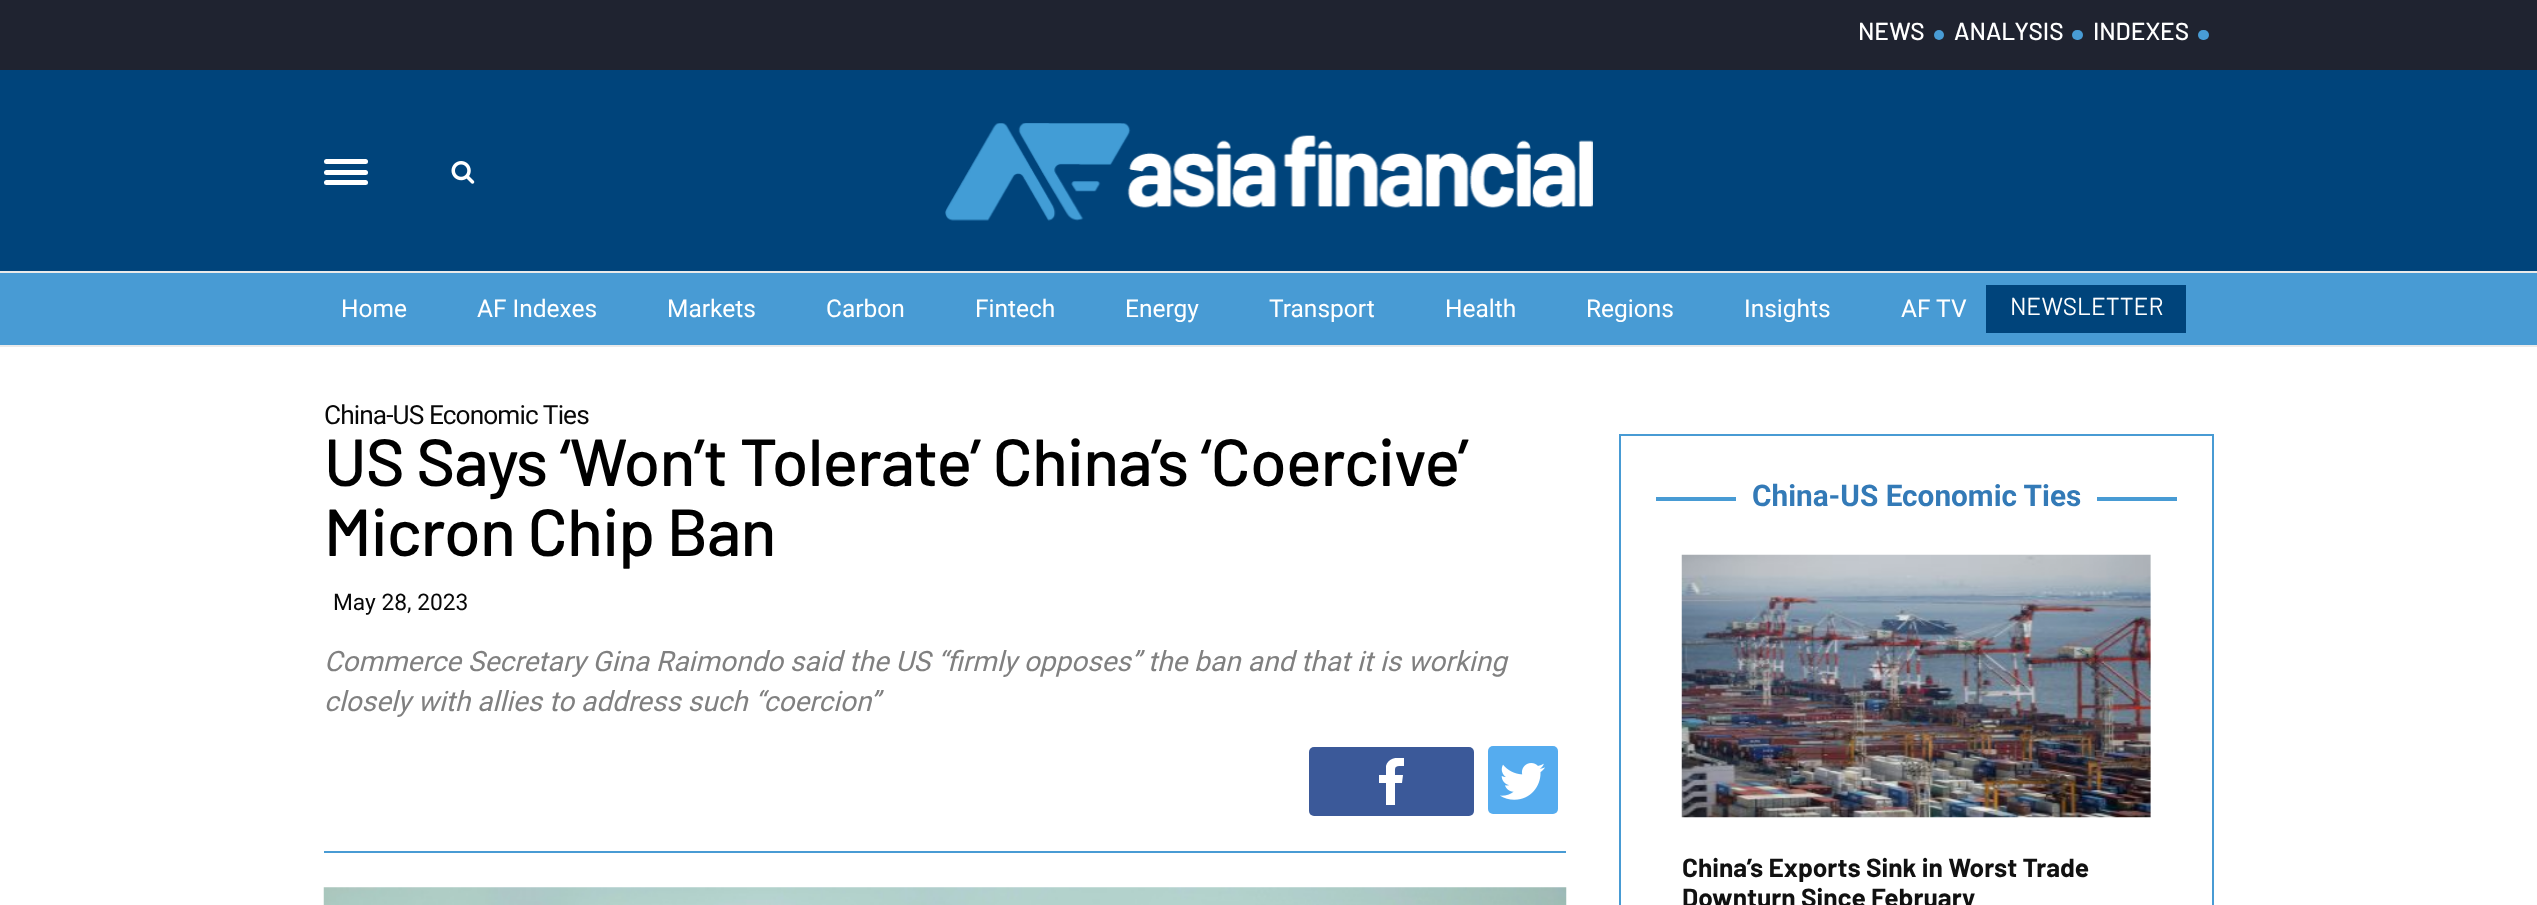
<?xml version="1.0" encoding="UTF-8"?>
<svg xmlns="http://www.w3.org/2000/svg" xmlns:xlink="http://www.w3.org/1999/xlink" width="2537" height="905">
  <defs>
    <clipPath id="clip1"><rect x="1379" y="758" width="25" height="47" /></clipPath>
  </defs>
  <rect width="100%" height="100%" fill="#ffffff" />
  <rect y="345" width="2537" height="2" fill="#eaeaea" />
  <rect y="273" width="2537" height="72" fill="#489bd4" />
  <rect width="2537" height="70" fill="#1f2330" />
  <circle cx="1939" cy="35" r="5" fill="#489cd5" />
  <rect x="2072" y="30" width="11" height="10" rx="5" fill="#489cd5" />
  <rect x="2198" y="30" width="11" height="10" rx="5" fill="#489cd5" />
  <rect y="70" width="2537" height="201" fill="#00447b" />
  <rect y="271" width="2537" height="2" fill="#eaeaea" />
  <rect x="324" y="159" width="44" height="5" rx="2.5" fill="#ffffff" />
  <rect x="324" y="170" width="44" height="5" rx="2.5" fill="#ffffff" />
  <rect x="324" y="180" width="44" height="5" rx="2.5" fill="#ffffff" />
  <image x="451" y="161" width="24" height="23" xlink:href="image1.png" />
  <image x="945" y="123" width="648" height="98" xlink:href="image2.png" />
  <rect x="1986" y="285" width="200" height="48" fill="#00447b" />
  <rect x="324" y="851" width="1242" height="2" fill="#489bd4" />
  <rect x="1309" y="747" width="165" height="69" rx="5" fill="#3b5999" />
  <g clip-path="url(#clip1)">
    <path d="M 1395 805 v -22 h 7 l 1 -8 h -8 c 0 -9 -1 -9 9 -9 v -8 c -8 -1 -16 0 -18 8 v 9 h -7 v 8 h 7 v 22 z" fill="#ffffff" />
  </g>
  <rect x="1488" y="746" width="70" height="68" rx="5" fill="#55acef" />
  <image x="1500" y="763" width="45" height="37" xlink:href="image3.png" />
  <image x="323" y="887" width="1244" height="18" xlink:href="image4.png" />
  <rect x="1620" y="435" width="593" height="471" fill="none" stroke="#489bd4" stroke-width="2" />
  <rect x="1656" y="497" width="521" height="4" fill="#489bd4" />
  <rect x="1736" y="497" width="361" height="4" fill="#ffffff" />
  <image x="1681" y="554" width="470" height="264" xlink:href="image5.png" />
  <text x="1858" y="40" style="font-family: Barlow; font-size: 24.5px; font-weight: 500; fill: #ffffff">NEWS</text>
  <text x="1954" y="40" style="font-family: Barlow; font-size: 24.5px; font-weight: 500; fill: #ffffff">ANALYSIS</text>
  <text x="2093" y="40" style="font-family: Barlow; font-size: 24.5px; font-weight: 500; fill: #ffffff">INDEXES</text>
  <text x="341" y="317" style="font-family: Roboto; font-size: 24.5px; fill: #ffffff">Home</text>
  <text x="477" y="317" style="font-family: Roboto; font-size: 24.5px; fill: #ffffff">AF Indexes</text>
  <text x="667" y="317" style="font-family: Roboto; font-size: 24.5px; fill: #ffffff">Markets</text>
  <text x="826" y="317" style="font-family: Roboto; font-size: 24.5px; fill: #ffffff">Carbon</text>
  <text x="975" y="317" style="font-family: Roboto; font-size: 24.5px; fill: #ffffff">Fintech</text>
  <text x="1125" y="317" style="font-family: Roboto; font-size: 24.5px; fill: #ffffff">Energy</text>
  <text x="1269" y="317" style="font-family: Roboto; font-size: 24.5px; fill: #ffffff">Transport</text>
  <text x="1445" y="317" style="font-family: Roboto; font-size: 24.5px; fill: #ffffff">Health</text>
  <text x="1586" y="317" style="font-family: Roboto; font-size: 24.5px; fill: #ffffff">Regions</text>
  <text x="1744" y="317" style="font-family: Roboto; font-size: 24.5px; fill: #ffffff">Insights</text>
  <text x="1901" y="317" style="font-family: Roboto; font-size: 24.5px; fill: #ffffff">AF TV</text>
  <text x="2010" y="315" style="font-family: Barlow; font-size: 24.5px; fill: #ffffff">NEWSLETTER</text>
  <text x="324" y="424" style="font-family: Roboto; font-size: 26.25px; letter-spacing: -0.9px; fill: #080808">China-US Economic Ties</text>
  <text x="324" y="486" style="font-family: Barlow; font-size: 66.5px; font-weight: 500; letter-spacing: -0.9px; fill: #000000">US Says ‘Won’t Tolerate’ China’s ‘Coercive’</text>
  <text x="324" y="556" style="font-family: Barlow; font-size: 66.5px; font-weight: 500; letter-spacing: -0.9px; fill: #000000">Micron Chip Ban</text>
  <text x="333" y="610" style="font-family: Roboto; font-size: 22.75px; fill: #080808">May 28, 2023</text>
  <text x="324" y="671" style="font-family: Roboto; font-size: 28px; font-style: italic; fill: #808080">Commerce Secretary Gina Raimondo said the US “firmly opposes” the ban and that it is working</text>
  <text x="324" y="711" style="font-family: Roboto; font-size: 28px; font-style: italic; fill: #808080">closely with allies to address such “coercion”</text>
  <text x="1752" y="506" style="font-family: Roboto; font-size: 29.75px; font-weight: bold; fill: #337ab7">China-US Economic Ties</text>
  <text x="1682" y="877" style="font-family: Barlow; font-size: 26.25px; font-weight: bold; fill: #111111">China’s Exports Sink in Worst Trade</text>
  <text x="1682" y="907" style="font-family: Barlow; font-size: 26.25px; font-weight: bold; fill: #111111">Downturn Since February</text>
</svg>
